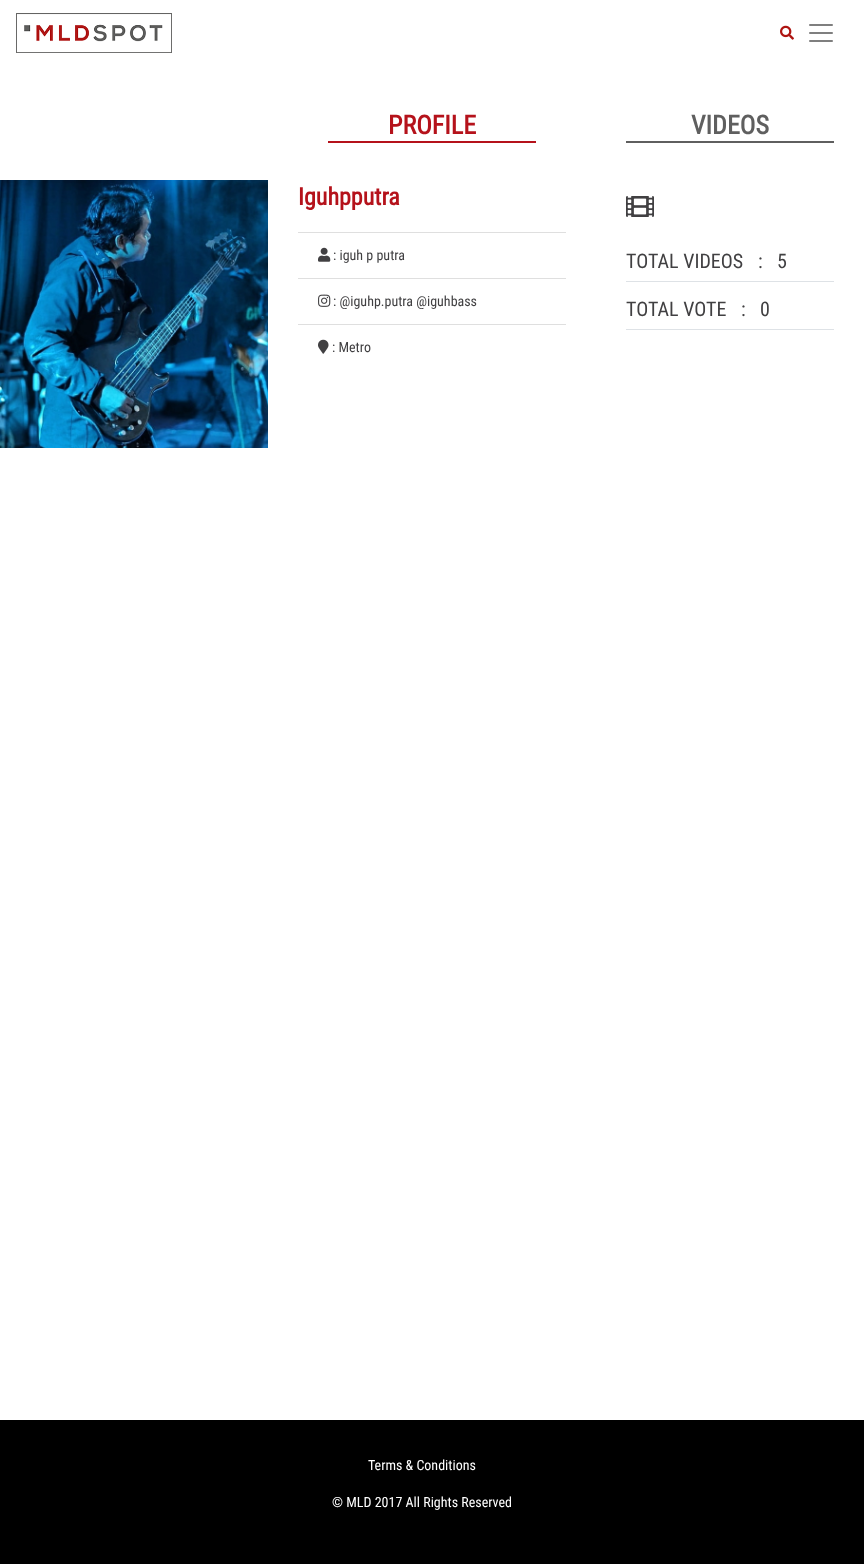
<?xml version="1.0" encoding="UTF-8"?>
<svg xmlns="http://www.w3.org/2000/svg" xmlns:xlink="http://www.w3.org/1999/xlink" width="864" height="1564">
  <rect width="100%" height="100%" fill="#ffffff" />
  <image x="16" y="13" width="156" height="40" xlink:href="image1.png" />
  <image x="780" y="25" width="14" height="15" xlink:href="image2.png" />
  <image x="809" y="24" width="24" height="18" xlink:href="image3.png" />
  <image x="0" y="180" width="268" height="268" xlink:href="image4.png" />
  <rect x="328" y="141" width="208" height="2" fill="#b5121b" />
  <rect x="298" y="232" width="268" height="1" fill="#dfdfdf" />
  <image x="318" y="247" width="13" height="15" xlink:href="image5.png" />
  <rect x="298" y="278" width="268" height="1" fill="#dfdfdf" />
  <image x="318" y="294" width="13" height="13" xlink:href="image6.png" />
  <rect x="298" y="324" width="268" height="1" fill="#dfdfdf" />
  <image x="318" y="339" width="11" height="15" xlink:href="image7.png" />
  <rect x="626" y="141" width="208" height="2" fill="#5f5f5f" />
  <image x="626" y="196" width="28" height="21" xlink:href="image8.png" />
  <rect x="626" y="281" width="208" height="1" fill="#dee2e6" />
  <rect x="626" y="329" width="208" height="1" fill="#dee2e6" />
  <rect y="1420" width="864" height="144" fill="#000000" />
  <text x="388" y="134" style="font-family: Roboto Condensed; font-size: 26px; font-weight: bold; fill: #b5121b">PROFILE</text>
  <text x="298" y="205" style="font-family: Roboto Condensed; font-size: 24px; font-weight: bold; fill: #b5121b">Iguhpputra</text>
  <text x="333" y="260" style="font-family: Roboto Condensed; font-size: 14px; fill: #414042">: iguh p putra</text>
  <text x="333" y="306" style="font-family: Roboto Condensed; font-size: 14px; fill: #414042">: @iguhp.putra @iguhbass</text>
  <text x="332" y="352" style="font-family: Roboto Condensed; font-size: 14px; fill: #414042">: Metro</text>
  <text x="691" y="134" style="font-family: Roboto Condensed; font-size: 26px; font-weight: bold; fill: #5f5f5f">VIDEOS</text>
  <text x="626" y="268" style="font-family: Roboto Condensed; font-size: 20px; fill: #414042">TOTAL VIDEOS</text>
  <text x="758" y="268" style="font-family: Roboto Condensed; font-size: 20px; fill: #414042">:</text>
  <text x="777" y="268" style="font-family: Roboto Condensed; font-size: 20px; fill: #414042">5</text>
  <text x="626" y="316" style="font-family: Roboto Condensed; font-size: 20px; fill: #414042">TOTAL VOTE</text>
  <text x="741" y="316" style="font-family: Roboto Condensed; font-size: 20px; fill: #414042">:</text>
  <text x="760" y="316" style="font-family: Roboto Condensed; font-size: 20px; fill: #414042">0</text>
  <text x="368" y="1470" style="font-family: Roboto Condensed; font-size: 14px; fill: #ffffff">Terms &amp; Conditions</text>
  <text x="332" y="1507" style="font-family: Roboto Condensed; font-size: 14px; fill: #ffffff">© MLD 2017 All Rights Reserved</text>
</svg>
